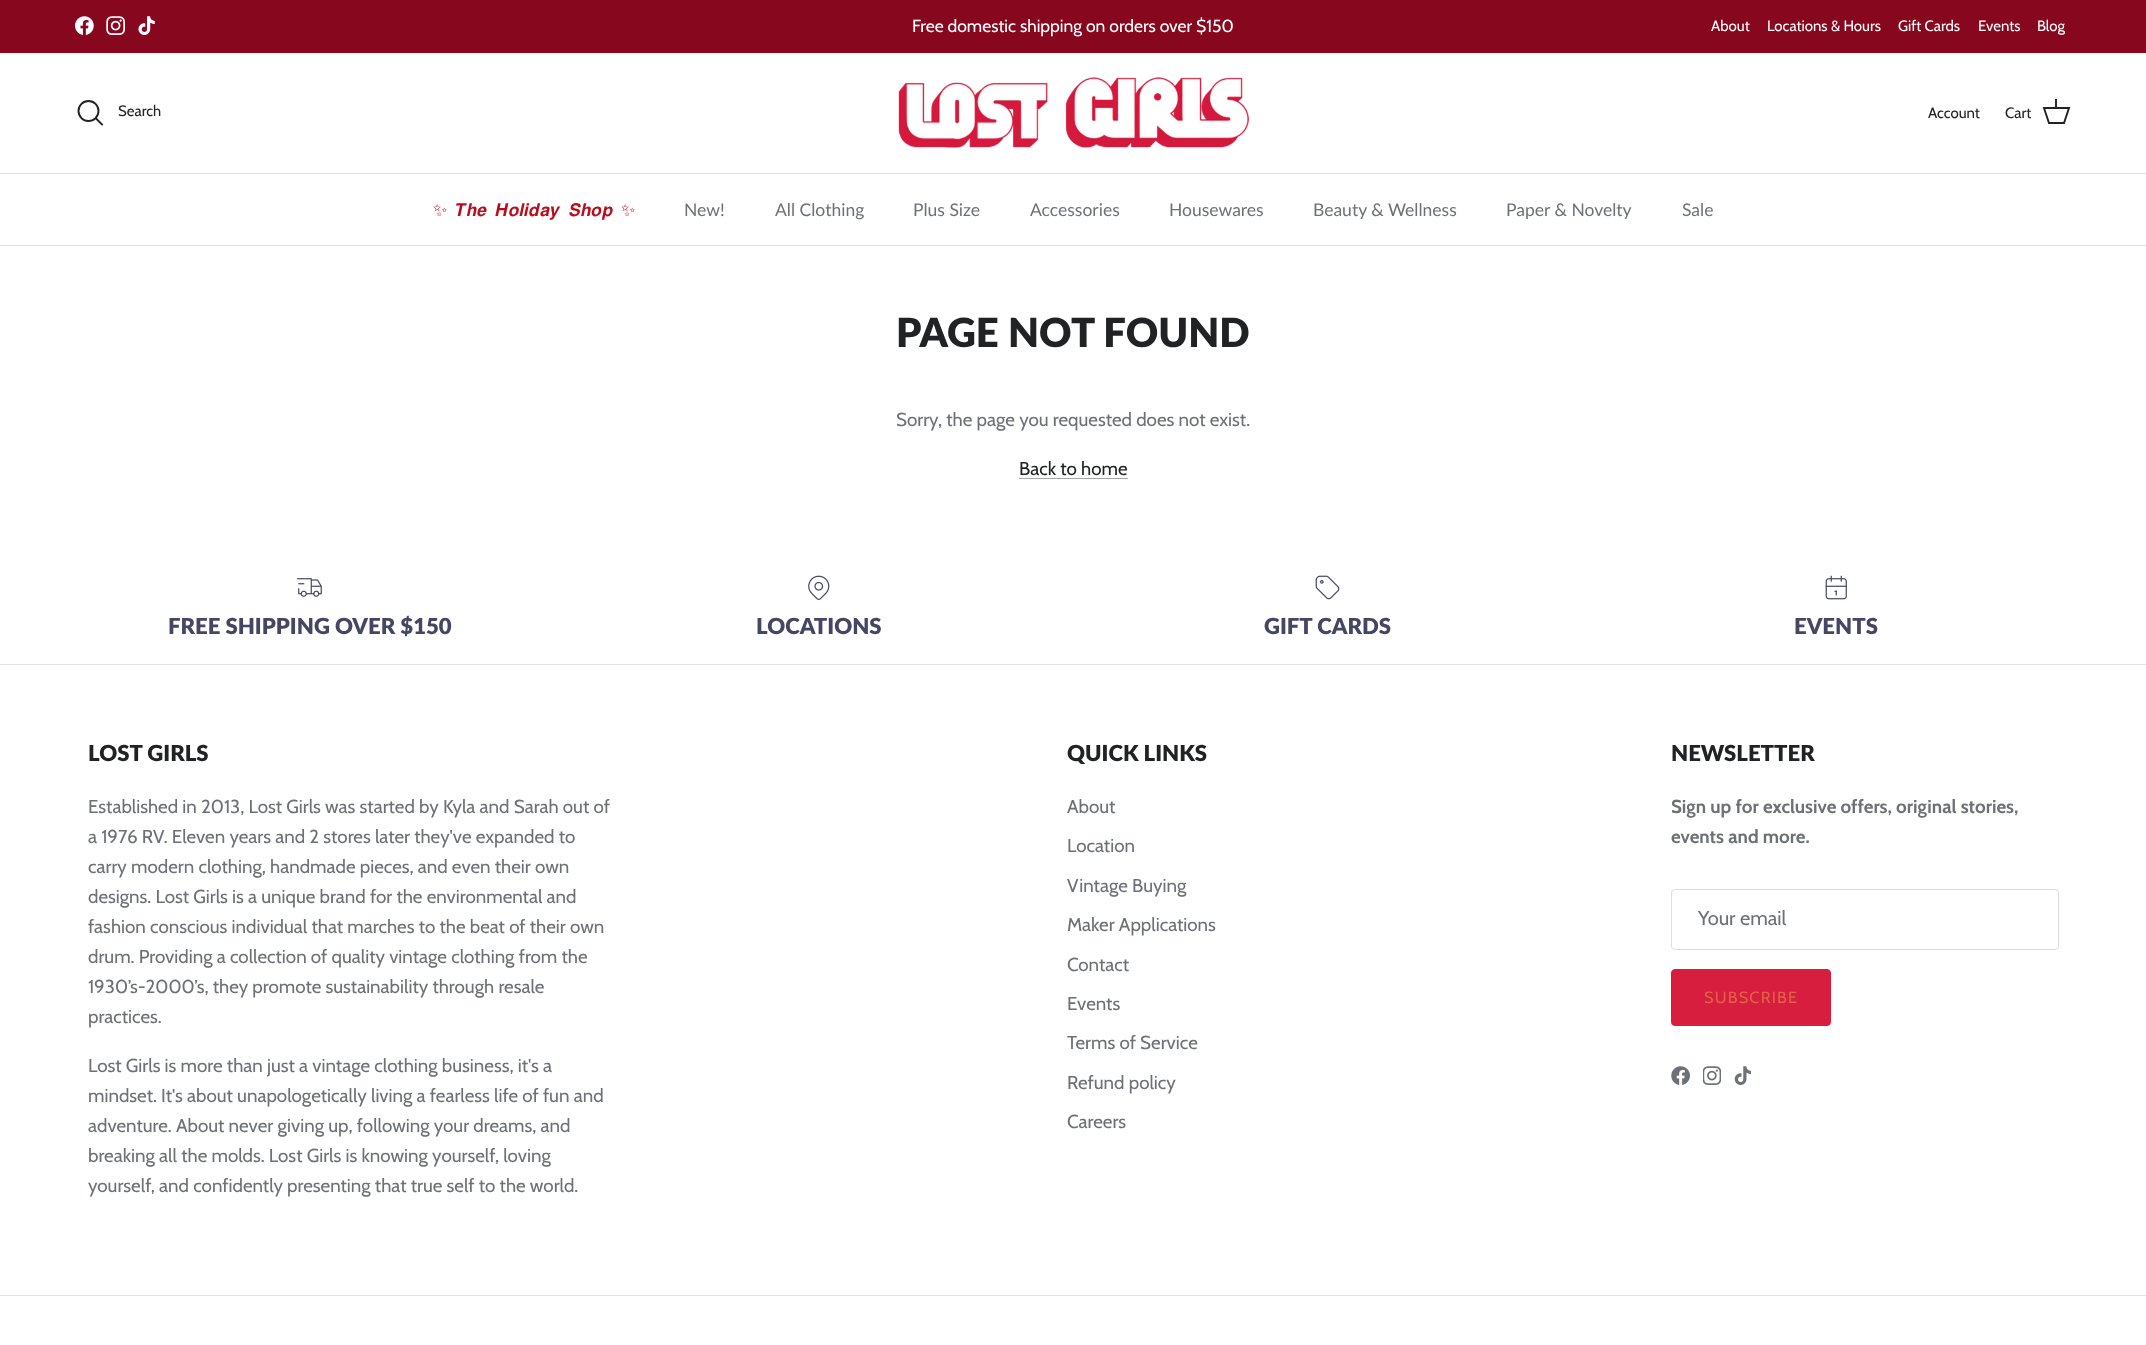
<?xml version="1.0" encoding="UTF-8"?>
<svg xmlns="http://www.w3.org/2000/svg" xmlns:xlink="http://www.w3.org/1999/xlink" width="2146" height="1345">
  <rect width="100%" height="100%" fill="#ffffff" />
  <rect width="2146" height="53" fill="#87081e" />
  <image x="75" y="16" width="19" height="19" xlink:href="image1.png" />
  <image x="106" y="16" width="19" height="19" xlink:href="image2.png" />
  <image x="138" y="16" width="17" height="19" xlink:href="image3.png" />
  <rect y="173" width="2146" height="1" fill="#e2e2e2" />
  <circle cx="88.5" cy="111" r="10" fill="none" stroke="#202223" stroke-width="1.9" />
  <path d="M 96 118.5 l 6 6" fill="none" stroke="#202223" stroke-width="1.9" stroke-linecap="square" />
  <image x="898" y="77" width="351" height="71" xlink:href="image4.png" />
  <path d="M 2044 108 h 25 l -5 15 h -15 z" fill="none" stroke="#202223" stroke-width="1.9" />
  <rect x="2055" y="99" width="2" height="9" fill="#202223" fill-opacity="0.95" />
  <rect y="245" width="2146" height="1" fill="#e2e2e2" />
  <rect x="1019" y="478" width="109" height="1" fill="#a6a7a7" />
  <image x="296" y="578" width="26" height="19" xlink:href="image5.png" />
  <image x="808" y="575" width="22" height="25" xlink:href="image6.png" />
  <image x="1315" y="575" width="25" height="25" xlink:href="image7.png" />
  <image x="1825" y="575" width="22" height="25" xlink:href="image8.png" />
  <rect y="664" width="2146" height="1" fill="#e0e0e0" />
  <rect x="1671.5" y="889.5" width="387" height="60" rx="3.5" fill="none" stroke="#dbdcdd" />
  <rect x="1671.5" y="969.5" width="159" height="56" rx="3.5" fill="#d81e3f" stroke="#d81e3f" />
  <image x="1671" y="1066" width="19" height="19" xlink:href="image9.png" />
  <image x="1703" y="1066" width="18" height="19" xlink:href="image10.png" />
  <image x="1734" y="1066" width="17" height="19" xlink:href="image11.png" />
  <rect y="1295" width="2146" height="1" fill="#e0e0e0" />
  <text x="912" y="32" style="font-family: Cabin; font-size: 17.5px; fill: #ffffff">Free domestic shipping on orders over $150</text>
  <text x="1711" y="31" style="font-family: Cabin; font-size: 15px; fill: #ffffff">About</text>
  <text x="1767" y="31" style="font-family: Cabin; font-size: 15px; fill: #ffffff">Locations &amp; Hours</text>
  <text x="1898" y="31" style="font-family: Cabin; font-size: 15px; fill: #ffffff">Gift Cards</text>
  <text x="1978" y="31" style="font-family: Cabin; font-size: 15px; fill: #ffffff">Events</text>
  <text x="2037" y="31" style="font-family: Cabin; font-size: 15px; fill: #ffffff">Blog</text>
  <text x="118" y="116" style="font-family: Cabin; font-size: 15px; fill: #202223">Search</text>
  <text x="1928" y="118" style="font-family: Cabin; font-size: 15px; fill: #202223">Account</text>
  <text x="2005" y="118" style="font-family: Cabin; font-size: 15px; fill: #202223">Cart</text>
  <text x="433" y="216" word-spacing="4" style="font-family: FreeSans; font-size: 17.5px; fill: #b90d1c">✨ 𝑻𝒉𝒆 𝑯𝒐𝒍𝒊𝒅𝒂𝒚 𝑺𝒉𝒐𝒑 ✨</text>
  <text x="684" y="216" style="font-family: Lato; font-size: 17.5px; fill: #6d7175">New!</text>
  <text x="775" y="216" style="font-family: Lato; font-size: 17.5px; fill: #6d7175">All Clothing</text>
  <text x="913" y="216" style="font-family: Lato; font-size: 17.5px; fill: #6d7175">Plus Size</text>
  <text x="1030" y="216" style="font-family: Lato; font-size: 17.5px; fill: #6d7175">Accessories</text>
  <text x="1169" y="216" style="font-family: Lato; font-size: 17.5px; fill: #6d7175">Housewares</text>
  <text x="1313" y="216" style="font-family: Lato; font-size: 17.5px; fill: #6d7175">Beauty &amp; Wellness</text>
  <text x="1506" y="216" style="font-family: Lato; font-size: 17.5px; fill: #6d7175">Paper &amp; Novelty</text>
  <text x="1682" y="216" style="font-family: Lato; font-size: 17.5px; fill: #6d7175">Sale</text>
  <text x="896" y="347" style="font-family: Lato; font-size: 40px; font-weight: 800; fill: #202223">PAGE NOT FOUND</text>
  <text x="896" y="426" style="font-family: Cabin; font-size: 18.75px; fill: #6d7175">Sorry, the page you requested does not exist.</text>
  <text x="1019" y="475" style="font-family: Cabin; font-size: 18.75px; fill: #202223">Back to home</text>
  <text x="168" y="634" style="font-family: Lato; font-size: 22.1px; font-weight: 800; fill: #454564">FREE SHIPPING OVER $150</text>
  <text x="756" y="634" style="font-family: Lato; font-size: 22.1px; font-weight: 800; fill: #454564">LOCATIONS</text>
  <text x="1264" y="634" style="font-family: Lato; font-size: 22.1px; font-weight: 800; fill: #454564">GIFT CARDS</text>
  <text x="1794" y="634" style="font-family: Lato; font-size: 22.1px; font-weight: 800; fill: #454564">EVENTS</text>
  <text x="88" y="761" style="font-family: Lato; font-size: 22.1px; font-weight: 800; fill: #202223">LOST GIRLS</text>
  <text x="88" y="813" style="font-family: Cabin; font-size: 18.75px; fill: #6d7175">Established in 2013, Lost Girls was started by Kyla and Sarah out of</text>
  <text x="88" y="843" style="font-family: Cabin; font-size: 18.75px; fill: #6d7175">a 1976 RV. Eleven years and 2 stores later they've expanded to</text>
  <text x="88" y="873" style="font-family: Cabin; font-size: 18.75px; fill: #6d7175">carry modern clothing, handmade pieces, and even their own</text>
  <text x="88" y="903" style="font-family: Cabin; font-size: 18.75px; fill: #6d7175">designs. Lost Girls is a unique brand for the environmental and</text>
  <text x="88" y="933" style="font-family: Cabin; font-size: 18.75px; fill: #6d7175">fashion conscious individual that marches to the beat of their own</text>
  <text x="88" y="963" style="font-family: Cabin; font-size: 18.75px; fill: #6d7175">drum. Providing a collection of quality vintage clothing from the</text>
  <text x="88" y="993" style="font-family: Cabin; font-size: 18.75px; fill: #6d7175">1930’s-2000’s, they promote sustainability through resale</text>
  <text x="88" y="1023" style="font-family: Cabin; font-size: 18.75px; fill: #6d7175">practices.</text>
  <text x="88" y="1072" style="font-family: Cabin; font-size: 18.75px; fill: #6d7175">Lost Girls is more than just a vintage clothing business, it's a</text>
  <text x="88" y="1102" style="font-family: Cabin; font-size: 18.75px; fill: #6d7175">mindset. It's about unapologetically living a fearless life of fun and</text>
  <text x="88" y="1132" style="font-family: Cabin; font-size: 18.75px; fill: #6d7175">adventure. About never giving up, following your dreams, and</text>
  <text x="88" y="1162" style="font-family: Cabin; font-size: 18.75px; fill: #6d7175">breaking all the molds. Lost Girls is knowing yourself, loving</text>
  <text x="88" y="1192" style="font-family: Cabin; font-size: 18.75px; fill: #6d7175">yourself, and confidently presenting that true self to the world.</text>
  <text x="1067" y="761" style="font-family: Lato; font-size: 22.1px; font-weight: 800; fill: #202223">QUICK LINKS</text>
  <text x="1067" y="813" style="font-family: Cabin; font-size: 18.75px; fill: #6d7175">About</text>
  <text x="1067" y="852" style="font-family: Cabin; font-size: 18.75px; fill: #6d7175">Location</text>
  <text x="1067" y="892" style="font-family: Cabin; font-size: 18.75px; fill: #6d7175">Vintage Buying</text>
  <text x="1067" y="931" style="font-family: Cabin; font-size: 18.75px; fill: #6d7175">Maker Applications</text>
  <text x="1067" y="971" style="font-family: Cabin; font-size: 18.75px; fill: #6d7175">Contact</text>
  <text x="1067" y="1010" style="font-family: Cabin; font-size: 18.75px; fill: #6d7175">Events</text>
  <text x="1067" y="1049" style="font-family: Cabin; font-size: 18.75px; fill: #6d7175">Terms of Service</text>
  <text x="1067" y="1089" style="font-family: Cabin; font-size: 18.75px; fill: #6d7175">Refund policy</text>
  <text x="1067" y="1128" style="font-family: Cabin; font-size: 18.75px; fill: #6d7175">Careers</text>
  <text x="1671" y="761" style="font-family: Lato; font-size: 22.1px; font-weight: 800; fill: #202223">NEWSLETTER</text>
  <text x="1671" y="813" style="font-family: Cabin; font-size: 18.75px; font-weight: bold; fill: #6d7175">Sign up for exclusive offers, original stories,</text>
  <text x="1671" y="843" style="font-family: Cabin; font-size: 18.75px; font-weight: bold; fill: #6d7175">events and more.</text>
  <text x="1698" y="925" style="font-family: Cabin; font-size: 20px; fill: #6d7175">Your email</text>
  <text x="1704" y="1003" style="font-family: Cabin; font-size: 16.25px; letter-spacing: 1.25px; fill: #e16149">SUBSCRIBE</text>
</svg>
